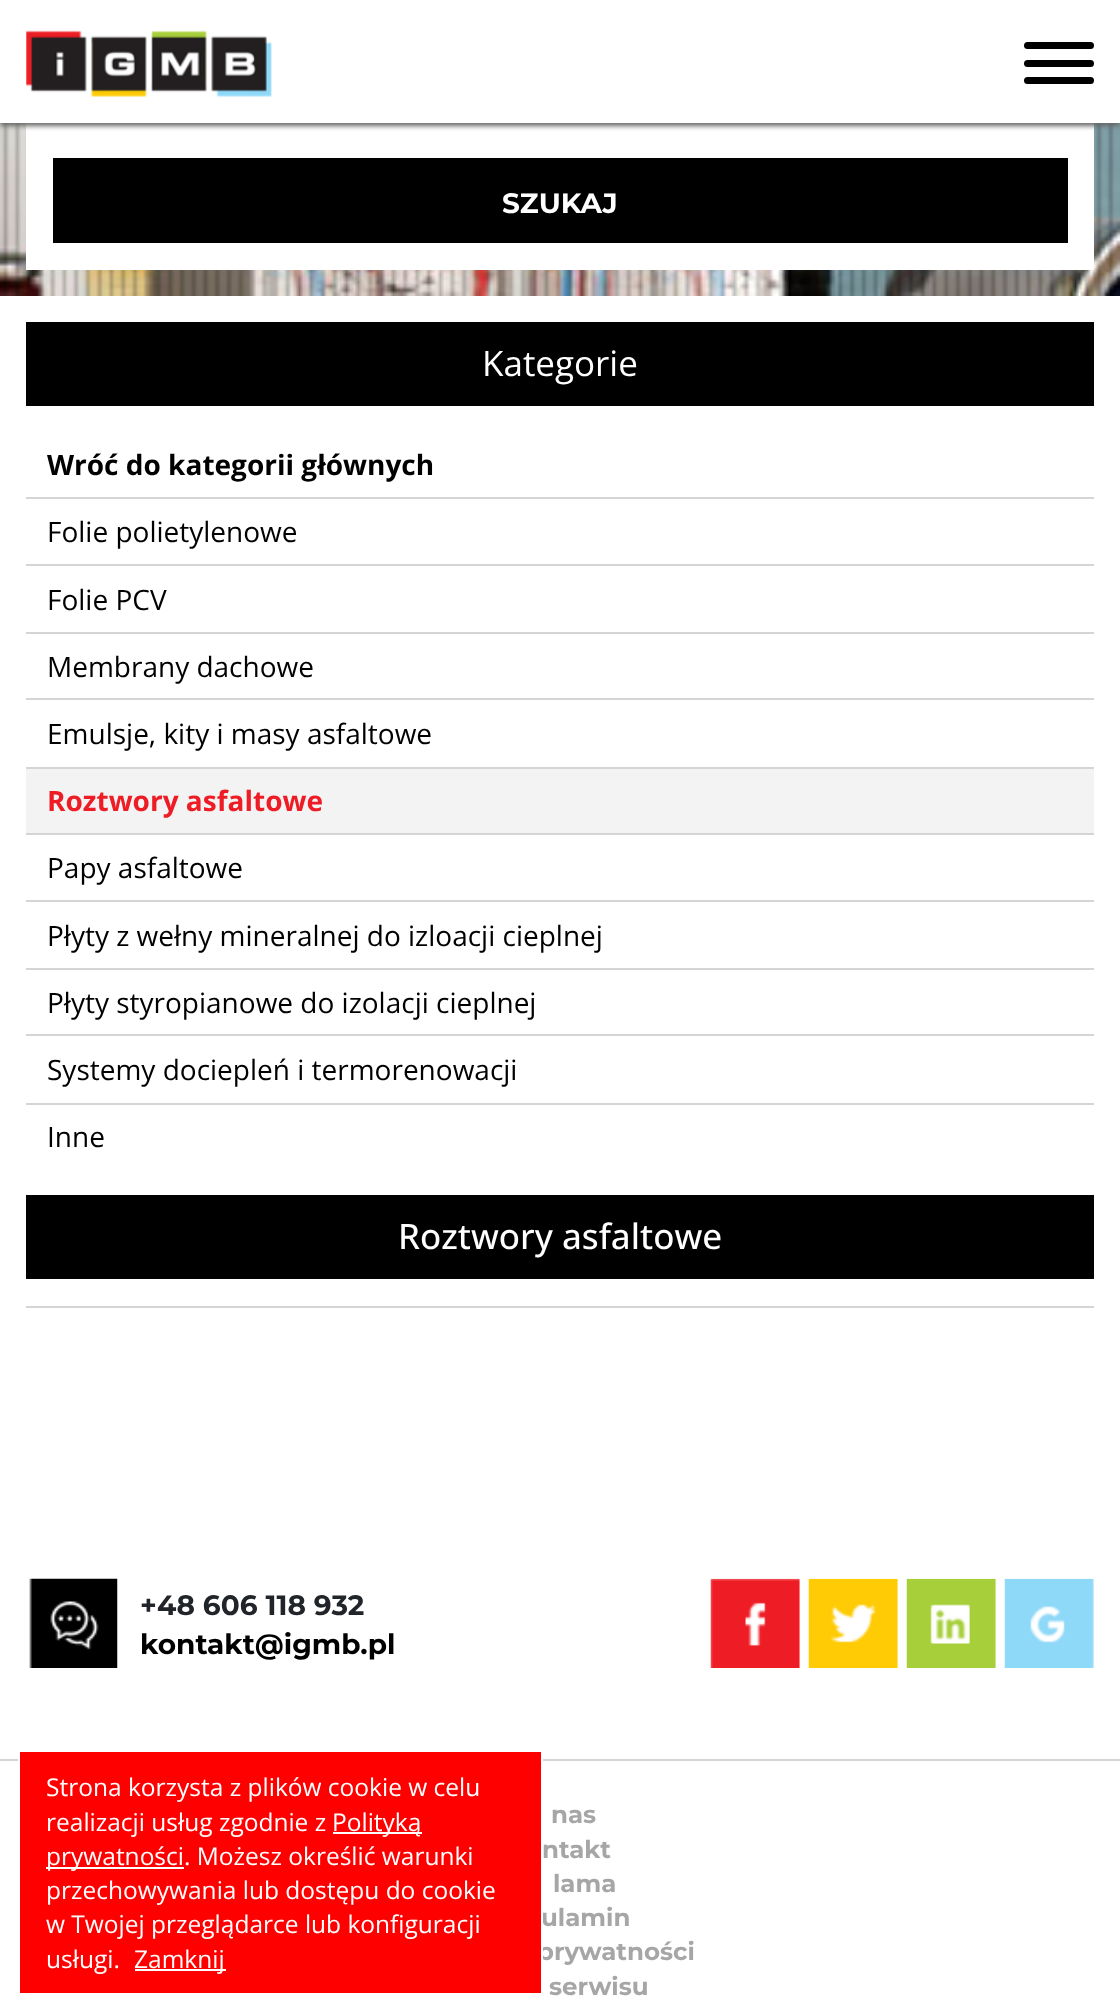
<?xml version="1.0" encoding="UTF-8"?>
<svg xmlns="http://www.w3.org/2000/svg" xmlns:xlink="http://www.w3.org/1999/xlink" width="1120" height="2011">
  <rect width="100%" height="100%" fill="#ffffff" />
  <image x="0" y="123" width="1120" height="173" xlink:href="image2.png" />
  <rect x="26" y="123" width="1068" height="147" fill="#ffffff" />
  <rect y="4" width="1120" height="122" fill="#666666" filter="blur(2.5px)" />
  <rect width="1120" height="123" fill="#ffffff" />
  <image x="26" y="30" width="246" height="67" xlink:href="image1.png" />
  <rect x="1024" y="77" width="70" height="7" rx="3.5" fill="#000000" />
  <rect x="1024" y="42" width="70" height="7" rx="3.5" fill="#000000" />
  <rect x="1024" y="60" width="70" height="7" rx="3.5" fill="#000000" />
  <rect x="53" y="158" width="1015" height="85" fill="#000000" />
  <rect x="26" y="322" width="1068" height="84" fill="#000000" />
  <rect x="26" y="497" width="1068" height="2" fill="#d5d5d5" />
  <rect x="26" y="564" width="1068" height="2" fill="#d5d5d5" />
  <rect x="26" y="632" width="1068" height="2" fill="#d5d5d5" />
  <rect x="26" y="698" width="1068" height="2" fill="#d5d5d5" />
  <rect x="26" y="769" width="1068" height="64" fill="#f3f3f3" />
  <rect x="26" y="767" width="1068" height="2" fill="#d5d5d5" />
  <rect x="26" y="833" width="1068" height="2" fill="#d5d5d5" />
  <rect x="26" y="900" width="1068" height="2" fill="#d5d5d5" />
  <rect x="26" y="968" width="1068" height="2" fill="#d5d5d5" />
  <rect x="26" y="1034" width="1068" height="2" fill="#d5d5d5" />
  <rect x="26" y="1103" width="1068" height="2" fill="#d5d5d5" />
  <rect x="26" y="1195" width="1068" height="84" fill="#000000" />
  <rect x="26" y="1306" width="1068" height="2" fill="#d5d5d5" />
  <image x="29" y="1578" width="89" height="90" xlink:href="image3.png" />
  <image x="710" y="1578" width="90" height="90" xlink:href="image4.png" />
  <image x="808" y="1578" width="90" height="90" xlink:href="image5.png" />
  <image x="906" y="1578" width="90" height="90" xlink:href="image6.png" />
  <image x="1004" y="1578" width="90" height="90" xlink:href="image7.png" />
  <rect y="1759" width="1120" height="2" fill="#d5d5d5" />
  <text x="502" y="213" style="font-family: Montserrat; font-size: 28px; font-weight: bold; fill: #ffffff">SZUKAJ</text>
  <text x="482" y="376" style="font-family: Open Sans; font-size: 35px; fill: #ffffff">Kategorie</text>
  <text x="47" y="475" style="font-family: Open Sans; font-size: 28px; font-weight: bold; fill: #000000">Wróć do kategorii głównych</text>
  <text x="47" y="542" style="font-family: Open Sans; font-size: 28px; fill: #000000">Folie polietylenowe</text>
  <text x="47" y="610" style="font-family: Open Sans; font-size: 28px; fill: #000000">Folie PCV</text>
  <text x="47" y="677" style="font-family: Open Sans; font-size: 28px; fill: #000000">Membrany dachowe</text>
  <text x="47" y="744" style="font-family: Open Sans; font-size: 28px; fill: #000000">Emulsje, kity i masy asfaltowe</text>
  <text x="47" y="811" style="font-family: Open Sans; font-size: 28px; font-weight: bold; fill: #ee1d25">Roztwory asfaltowe</text>
  <text x="47" y="878" style="font-family: Open Sans; font-size: 28px; fill: #000000">Papy asfaltowe</text>
  <text x="47" y="946" style="font-family: Open Sans; font-size: 28px; fill: #000000">Płyty z wełny mineralnej do izloacji cieplnej</text>
  <text x="47" y="1013" style="font-family: Open Sans; font-size: 28px; fill: #000000">Płyty styropianowe do izolacji cieplnej</text>
  <text x="47" y="1080" style="font-family: Open Sans; font-size: 28px; fill: #000000">Systemy dociepleń i termorenowacji</text>
  <text x="47" y="1147" style="font-family: Open Sans; font-size: 28px; fill: #000000">Inne</text>
  <text x="398" y="1249" style="font-family: Open Sans; font-size: 35px; font-weight: 500; fill: #ffffff">Roztwory asfaltowe</text>
  <text x="140" y="1615" style="font-family: Montserrat; font-size: 28px; font-weight: bold; fill: #212529">+48 606 118 932</text>
  <text x="140" y="1654" style="font-family: Montserrat; font-size: 28px; font-weight: bold; fill: #000000">kontakt@igmb.pl</text>
  <text x="551" y="1823" style="font-family: Montserrat; font-size: 24.5px; font-weight: bold; fill: #a6a6a6">nas</text>
  <text x="542" y="1858" style="font-family: Montserrat; font-size: 24.5px; font-weight: bold; fill: #a6a6a6">ntakt</text>
  <text x="553" y="1892" style="font-family: Montserrat; font-size: 24.5px; font-weight: bold; fill: #a6a6a6">lama</text>
  <text x="541" y="1926" style="font-family: Montserrat; font-size: 24.5px; font-weight: bold; fill: #a6a6a6">ulamin</text>
  <text x="537" y="1960" style="font-family: Montserrat; font-size: 24.5px; font-weight: bold; fill: #a6a6a6">prywatności</text>
  <rect x="19" y="1751" width="523" height="243" fill="#ff0000" stroke="#ffffff" stroke-width="2" />
  <rect x="135" y="1969" width="91" height="2" fill="#ffffff" />
  <text x="134" y="1968" style="font-family: Open Sans; font-size: 24.5px; fill: #ffffff">Zamknij</text>
  <text x="46" y="1968" style="font-family: Open Sans; font-size: 24.5px; fill: #ffffff">usługi.</text>
  <text x="46" y="1933" style="font-family: Open Sans; font-size: 24.5px; fill: #ffffff">w Twojej przeglądarce lub konfiguracji</text>
  <text x="46" y="1899" style="font-family: Open Sans; font-size: 24.5px; fill: #ffffff">przechowywania lub dostępu do cookie</text>
  <rect x="46" y="1867" width="138" height="2" fill="#ffffff" />
  <text x="46" y="1865" style="font-family: Open Sans; font-size: 24.5px; fill: #ffffff">prywatności. Możesz określić warunki</text>
  <rect x="333" y="1832" width="89" height="2" fill="#ffffff" />
  <text x="332" y="1831" style="font-family: Open Sans; font-size: 24.5px; fill: #ffffff">Polityką</text>
  <text x="46" y="1831" style="font-family: Open Sans; font-size: 24.5px; fill: #ffffff">realizacji usług zgodnie z</text>
  <text x="46" y="1796" style="font-family: Open Sans; font-size: 24.5px; fill: #ffffff">Strona korzysta z plików cookie w celu</text>
  <text x="549" y="1995" style="font-family: Montserrat; font-size: 24.5px; font-weight: bold; fill: #a6a6a6">serwisu</text>
</svg>
